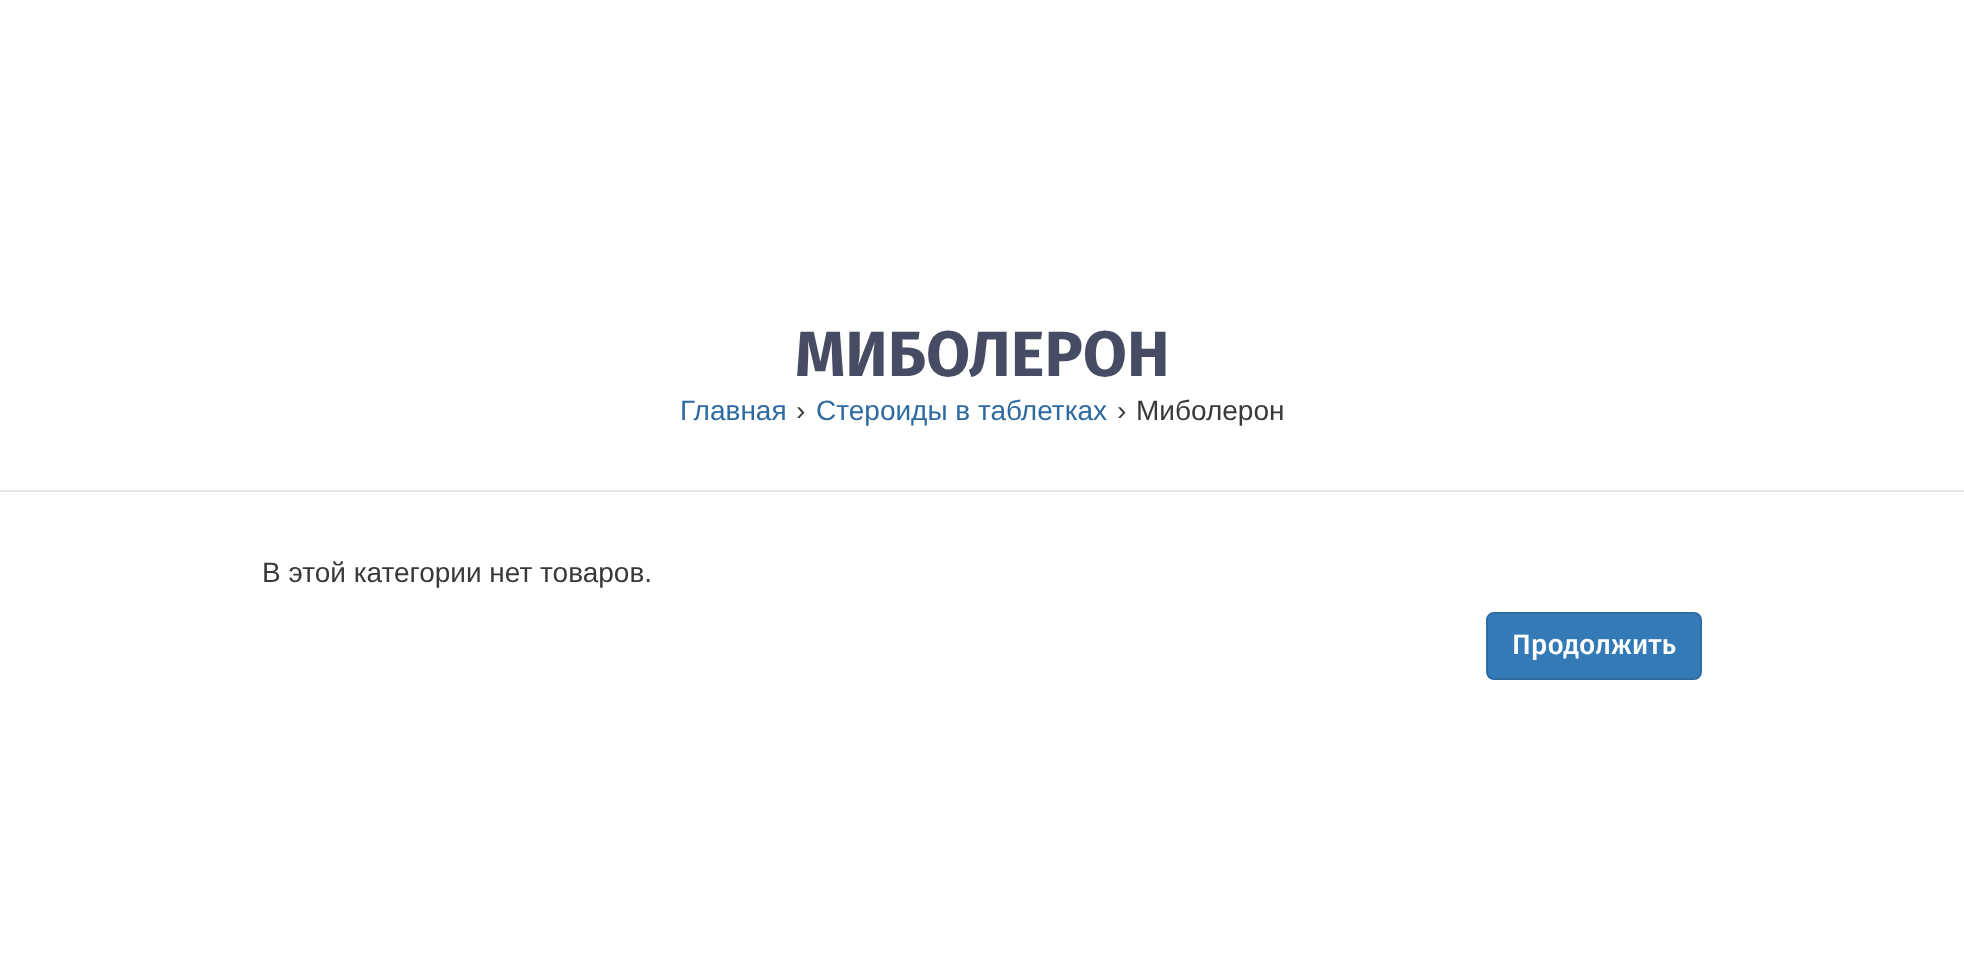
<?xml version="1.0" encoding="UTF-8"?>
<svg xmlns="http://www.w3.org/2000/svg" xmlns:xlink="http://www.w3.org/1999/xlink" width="1964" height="966">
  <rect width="100%" height="100%" fill="#ffffff" />
  <rect y="490" width="1964" height="2" fill="#e6e6e6" />
  <rect x="1487" y="613" width="214" height="66" rx="7" fill="#337ab7" stroke="#2e6da4" stroke-width="2" />
  <text x="795" y="376" style="font-family: Fira Sans; font-size: 64px; font-weight: bold; fill: #464c63">МИБОЛЕРОН</text>
  <text x="680" y="420" style="font-family: Liberation Sans; font-size: 28px; fill: #2d6aa2">Главная</text>
  <text x="796" y="420" style="font-family: Liberation Sans; font-size: 28px; fill: #393939">›</text>
  <text x="816" y="420" style="font-family: Liberation Sans; font-size: 28px; fill: #2d6aa2">Стероиды в таблетках</text>
  <text x="1117" y="420" style="font-family: Liberation Sans; font-size: 28px; fill: #393939">›</text>
  <text x="1136" y="420" style="font-family: Liberation Sans; font-size: 28px; fill: #393939">Миболерон</text>
  <text x="262" y="582" style="font-family: Liberation Sans; font-size: 28px; fill: #393939">В этой категории нет товаров.</text>
  <text x="1512" y="654" style="font-family: Fira Sans; font-size: 28px; font-weight: 500; fill: #ffffff">Продолжить</text>
</svg>
